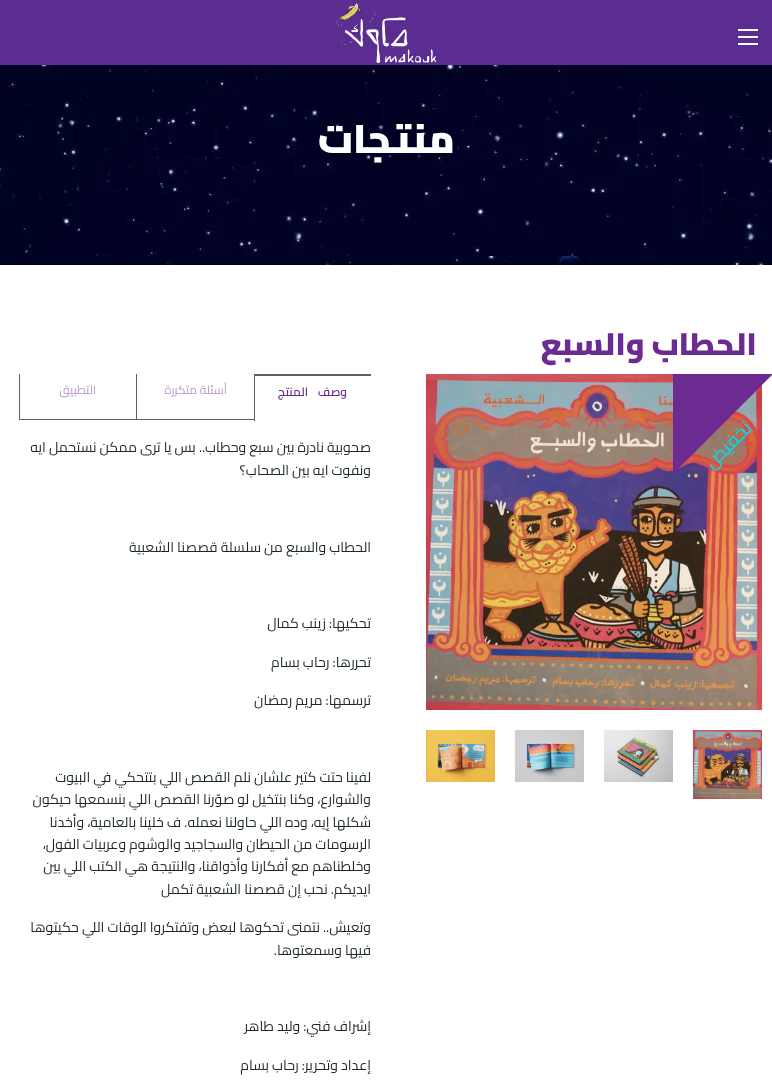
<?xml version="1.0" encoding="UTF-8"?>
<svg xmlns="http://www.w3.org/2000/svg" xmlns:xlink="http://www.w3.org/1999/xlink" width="772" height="1083">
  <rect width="100%" height="100%" fill="#ffffff" />
  <rect width="772" height="65" fill="#5c2d91" />
  <rect x="738" y="43" width="20" height="2" fill="#fefefe" />
  <rect x="738" y="36" width="20" height="2" fill="#fefefe" />
  <rect x="738" y="29" width="20" height="2" fill="#fefefe" />
  <image x="336" y="3" width="100" height="60" xlink:href="image1.png" />
  <image x="0" y="65" width="772" height="200" xlink:href="image2.png" />
  <image x="426" y="374" width="336" height="336" xlink:href="image3.png" />
  <path d="M 673 374 h 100 l -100 100 z" fill="#6c2b91" />
  <image x="693" y="730" width="69" height="69" xlink:href="image4.png" />
  <image x="604" y="730" width="69" height="52" xlink:href="image5.png" />
  <image x="515" y="730" width="69" height="52" xlink:href="image6.png" />
  <image x="426" y="730" width="69" height="52" xlink:href="image7.png" />
  <rect x="254" y="374" width="117" height="2" fill="#596267" />
  <rect x="254" y="374" width="1" height="47" fill="#596267" />
  <rect x="19" y="419" width="235" height="1" fill="#596267" />
  <rect x="136" y="374" width="1" height="46" fill="#596267" />
  <rect x="19" y="374" width="1" height="46" fill="#596267" />
  <text x="455" y="153" style="font-family: Cairo; font-size: 40px; font-weight: 900; direction: rtl; fill: #ffffff">منتجات</text>
  <text x="757" y="355" style="font-family: Cairo; font-size: 31px; font-weight: 900; direction: rtl; fill: #6c2b91">الحطاب والسبع</text>
  <text x="753" y="429" transform="rotate(-45 753 429)" style="font-family: Cairo; font-size: 19px; direction: rtl; fill: #00ddf9">تخفيض</text>
  <text x="347" y="396" word-spacing="7" style="font-family: Cairo; font-size: 12px; font-weight: 600; direction: rtl; fill: #6c2b91">وصف المنتج</text>
  <text x="227" y="394" style="font-family: Cairo; font-size: 12px; direction: rtl; fill: #b898ca">أسئلة متكررة</text>
  <text x="96" y="394" style="font-family: Cairo; font-size: 12px; direction: rtl; fill: #b898ca">التطبيق</text>
  <text x="371" y="452" style="font-family: Cairo; font-size: 14px; direction: rtl; fill: #1c282e">صحوبية نادرة بين سبع وحطاب.. بس يا ترى ممكن نستحمل ايه</text>
  <text x="371" y="475" style="font-family: Cairo; font-size: 14px; direction: rtl; fill: #1c282e">ونفوت ايه بين الصحاب؟</text>
  <text x="371" y="552" style="font-family: Cairo; font-size: 14px; direction: rtl; fill: #1c282e">الحطاب والسبع من سلسلة قصصنا الشعبية</text>
  <text x="371" y="628" style="font-family: Cairo; font-size: 14px; direction: rtl; fill: #1c282e">تحكيها: زينب كمال</text>
  <text x="371" y="667" style="font-family: Cairo; font-size: 14px; direction: rtl; fill: #1c282e">تحررها: رحاب بسام</text>
  <text x="371" y="705" style="font-family: Cairo; font-size: 14px; direction: rtl; fill: #1c282e">ترسمها: مريم رمضان</text>
  <text x="371" y="782" style="font-family: Cairo; font-size: 14px; direction: rtl; fill: #1c282e">لفينا حتت كتير علشان نلم القصص اللي بتتحكي في البيوت</text>
  <text x="371" y="804" style="font-family: Cairo; font-size: 14px; direction: rtl; fill: #1c282e">والشوارع، وكنا بنتخيل لو صوّرنا القصص اللي بنسمعها حيكون</text>
  <text x="371" y="827" style="font-family: Cairo; font-size: 14px; direction: rtl; fill: #1c282e">شكلها إيه، وده اللي حاولنا نعمله. ف خلينا بالعامية، وأخدنا</text>
  <text x="371" y="849" style="font-family: Cairo; font-size: 14px; direction: rtl; fill: #1c282e">الرسومات من الحيطان والسجاجيد والوشوم وعربيات الفول،</text>
  <text x="371" y="871" style="font-family: Cairo; font-size: 14px; direction: rtl; fill: #1c282e">وخلطناهم مع أفكارنا وأذواقنا، والنتيجة هي الكتب اللي بين</text>
  <text x="371" y="894" style="font-family: Cairo; font-size: 14px; direction: rtl; fill: #1c282e">ايديكم. نحب إن قصصنا الشعبية تكمل</text>
  <text x="371" y="932" style="font-family: Cairo; font-size: 14px; direction: rtl; fill: #1c282e">وتعيش.. نتمنى تحكوها لبعض وتفتكروا الوقات اللي حكيتوها</text>
  <text x="371" y="955" style="font-family: Cairo; font-size: 14px; direction: rtl; fill: #1c282e">فيها وسمعتوها.</text>
  <text x="371" y="1031" style="font-family: Cairo; font-size: 14px; direction: rtl; fill: #1c282e">إشراف فني: وليد طاهر</text>
  <text x="371" y="1070" style="font-family: Cairo; font-size: 14px; direction: rtl; fill: #1c282e">إعداد وتحرير: رحاب بسام</text>
</svg>
